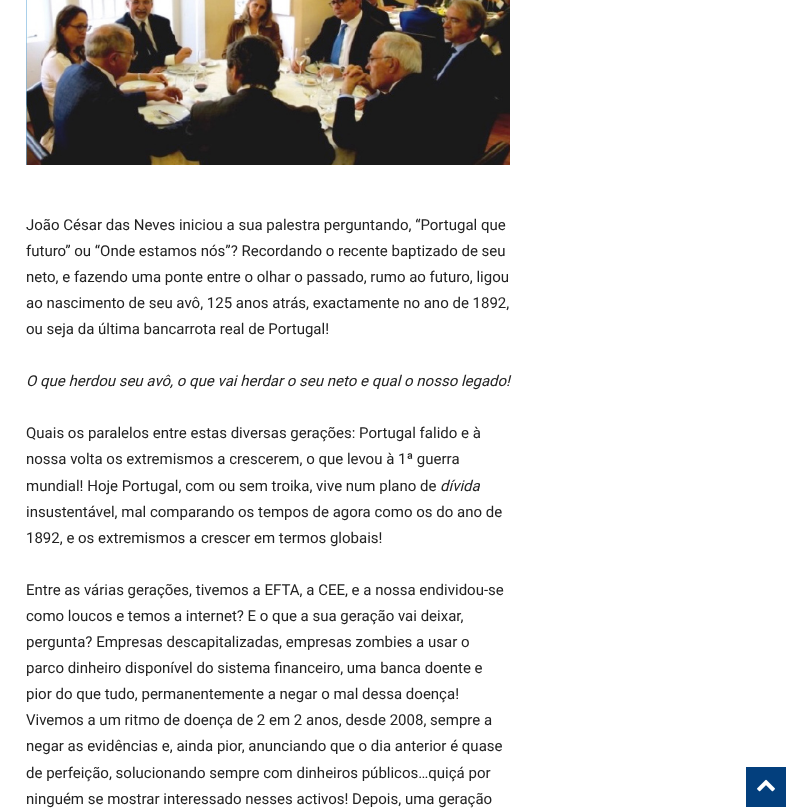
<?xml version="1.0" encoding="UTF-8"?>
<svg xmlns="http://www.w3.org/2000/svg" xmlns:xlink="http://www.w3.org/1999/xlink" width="791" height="811">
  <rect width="100%" height="100%" fill="#ffffff" />
  <image x="26" y="0" width="484" height="165" xlink:href="image1.png" />
  <rect x="746" y="767" width="40" height="40" fill="#033f7d" />
  <image x="757" y="779" width="18" height="13" xlink:href="image2.png" />
  <text x="26" y="230" style="font-family: Roboto; font-size: 15px; fill: #222222">João César das Neves iniciou a sua palestra perguntando, “Portugal que</text>
  <text x="26" y="256" style="font-family: Roboto; font-size: 15px; fill: #222222">futuro” ou “Onde estamos nós”? Recordando o recente baptizado de seu</text>
  <text x="26" y="282" style="font-family: Roboto; font-size: 15px; fill: #222222">neto, e fazendo uma ponte entre o olhar o passado, rumo ao futuro, ligou</text>
  <text x="26" y="308" style="font-family: Roboto; font-size: 15px; fill: #222222">ao nascimento de seu avô, 125 anos atrás, exactamente no ano de 1892,</text>
  <text x="26" y="334" style="font-family: Roboto; font-size: 15px; fill: #222222">ou seja da última bancarrota real de Portugal!</text>
  <text x="26" y="386" style="font-family: Roboto; font-size: 15px; font-style: italic; fill: #222222">O que herdou seu avô, o que vai herdar o seu neto e qual o nosso legado!</text>
  <text x="26" y="438" style="font-family: Roboto; font-size: 15px; fill: #222222">Quais os paralelos entre estas diversas gerações: Portugal falido e à</text>
  <text x="26" y="464" style="font-family: Roboto; font-size: 15px; fill: #222222">nossa volta os extremismos a crescerem, o que levou à 1ª guerra</text>
  <text x="26" y="491" style="font-family: Roboto; font-size: 15px; fill: #222222">mundial! Hoje Portugal, com ou sem troika, vive num plano de</text>
  <text x="440" y="491" style="font-family: Roboto; font-size: 15px; font-style: italic; fill: #222222">dívida</text>
  <text x="26" y="517" style="font-family: Roboto; font-size: 15px; fill: #222222">insustentável, mal comparando os tempos de agora como os do ano de</text>
  <text x="26" y="543" style="font-family: Roboto; font-size: 15px; fill: #222222">1892, e os extremismos a crescer em termos globais!</text>
  <text x="26" y="595" style="font-family: Roboto; font-size: 15px; fill: #222222">Entre as várias gerações, tivemos a EFTA, a CEE, e a nossa endividou-se</text>
  <text x="26" y="621" style="font-family: Roboto; font-size: 15px; fill: #222222">como loucos e temos a internet? E o que a sua geração vai deixar,</text>
  <text x="26" y="647" style="font-family: Roboto; font-size: 15px; fill: #222222">pergunta? Empresas descapitalizadas, empresas zombies a usar o</text>
  <text x="26" y="673" style="font-family: Roboto; font-size: 15px; fill: #222222">parco dinheiro disponível do sistema financeiro, uma banca doente e</text>
  <text x="26" y="699" style="font-family: Roboto; font-size: 15px; fill: #222222">pior do que tudo, permanentemente a negar o mal dessa doença!</text>
  <text x="26" y="725" style="font-family: Roboto; font-size: 15px; fill: #222222">Vivemos a um ritmo de doença de 2 em 2 anos, desde 2008, sempre a</text>
  <text x="26" y="751" style="font-family: Roboto; font-size: 15px; fill: #222222">negar as evidências e, ainda pior, anunciando que o dia anterior é quase</text>
  <text x="26" y="778" style="font-family: Roboto; font-size: 15px; fill: #222222">de perfeição, solucionando sempre com dinheiros públicos…quiçá por</text>
  <text x="26" y="804" style="font-family: Roboto; font-size: 15px; fill: #222222">ninguém se mostrar interessado nesses activos! Depois, uma geração</text>
</svg>
